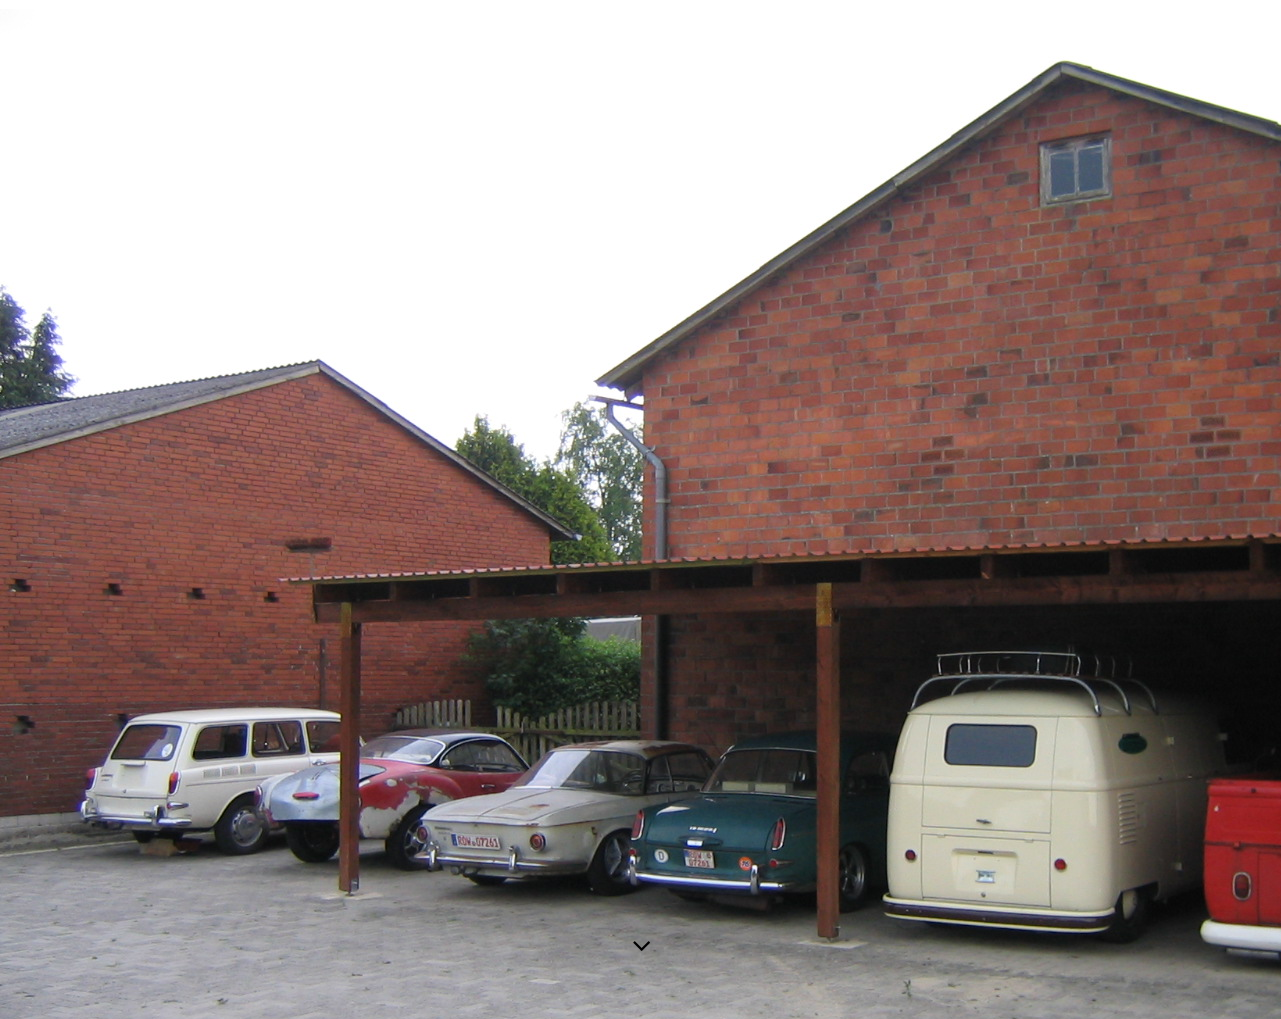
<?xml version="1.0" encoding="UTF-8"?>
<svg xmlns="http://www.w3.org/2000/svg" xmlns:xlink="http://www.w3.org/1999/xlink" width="1281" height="1019">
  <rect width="100%" height="100%" fill="#ffffff" />
  <image x="0" y="9" width="1281" height="1010" xlink:href="image1.png" />
  <image x="633" y="941" width="17" height="10" xlink:href="image2.png" />
</svg>
